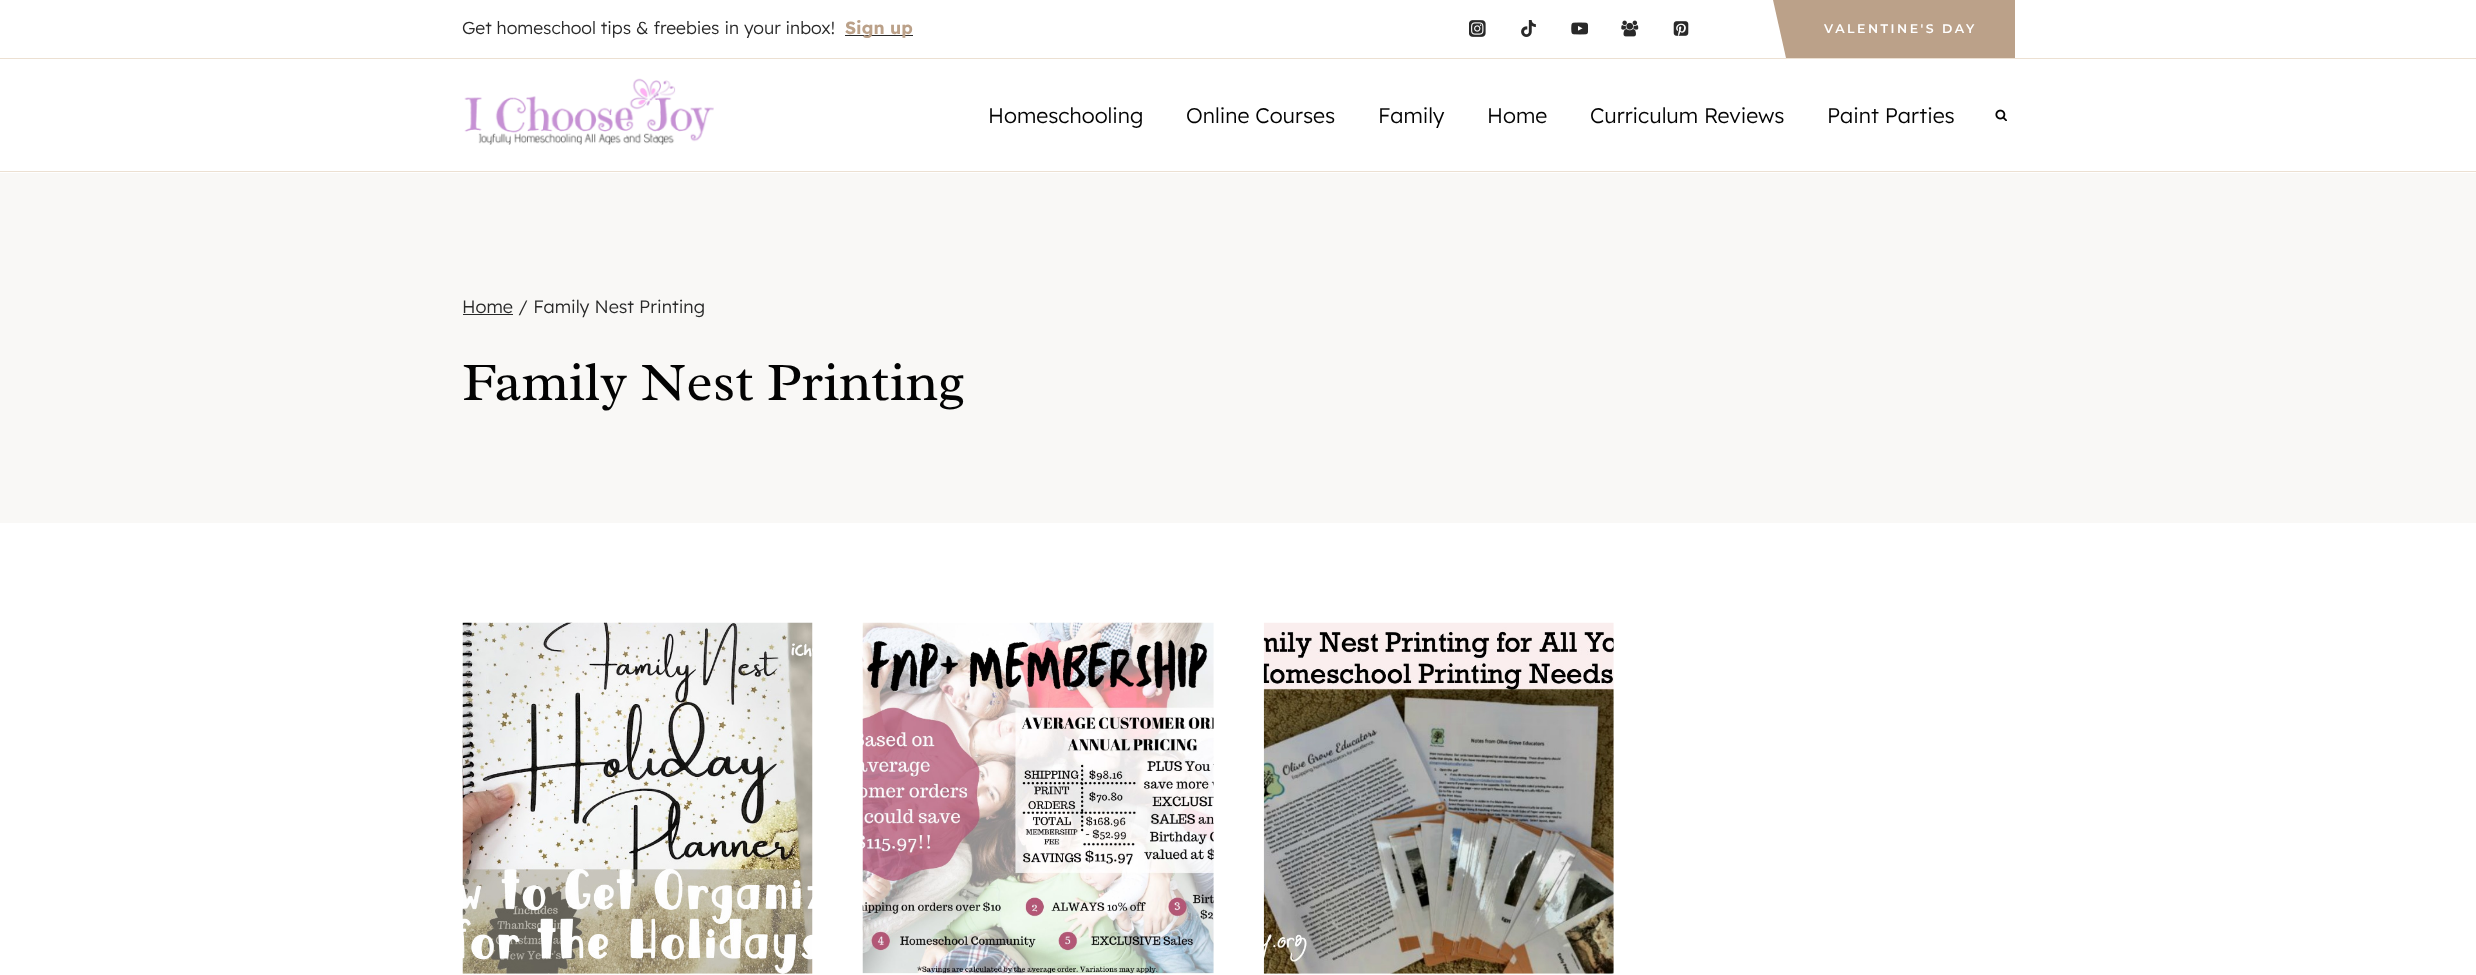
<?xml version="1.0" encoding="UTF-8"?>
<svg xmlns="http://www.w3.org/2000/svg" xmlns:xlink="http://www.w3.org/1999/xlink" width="2476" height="975">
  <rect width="100%" height="100%" fill="#ffffff" />
  <rect y="58" width="2476" height="1" fill="#ece0d2" />
  <rect x="845" y="35" width="68" height="1" fill="#292929" />
  <image x="1469" y="20" width="17" height="17" xlink:href="image1.png" />
  <image x="1521" y="20" width="15" height="17" xlink:href="image2.png" />
  <image x="1571" y="22" width="17" height="13" xlink:href="image3.png" />
  <image x="1621" y="20" width="18" height="17" xlink:href="image4.png" />
  <image x="1673" y="21" width="16" height="15" xlink:href="image5.png" />
  <path d="M 1773 0 h 228 l 13 58 h -228 z" fill="#bba189" />
  <rect x="2001" width="14" height="58" fill="#bba189" />
  <rect y="171" width="2476" height="1" fill="#ece0d2" />
  <image x="464" y="78" width="250" height="67" xlink:href="image6.png" />
  <image x="1995" y="109" width="12" height="12" xlink:href="image7.png" />
  <rect y="173" width="2476" height="350" fill="#f9f8f6" />
  <rect x="463" y="314" width="50" height="1" fill="#292929" />
  <image x="462" y="622" width="351" height="352" xlink:href="image8.png" />
  <image x="862" y="622" width="352" height="352" xlink:href="image9.png" />
  <image x="1263" y="622" width="351" height="352" xlink:href="image10.png" />
  <text x="462" y="34" style="font-family: Lexend; font-size: 17.5px; font-weight: 300; fill: #292929">Get homeschool tips &amp; freebies in your inbox!</text>
  <text x="845" y="34" style="font-family: Lexend; font-size: 17.5px; font-weight: bold; fill: #bba189">Sign up</text>
  <text x="1824" y="33" style="font-family: Montserrat; font-size: 12.5px; font-weight: 100; letter-spacing: 2.5px; fill: #ffffff">VALENTINE'S DAY</text>
  <text x="988" y="123" style="font-family: Lexend; font-size: 21.25px; font-weight: 300; fill: #030303">Homeschooling</text>
  <text x="1186" y="123" style="font-family: Lexend; font-size: 21.25px; font-weight: 300; fill: #030303">Online Courses</text>
  <text x="1378" y="123" style="font-family: Lexend; font-size: 21.25px; font-weight: 300; fill: #030303">Family</text>
  <text x="1487" y="123" style="font-family: Lexend; font-size: 21.25px; font-weight: 300; fill: #030303">Home</text>
  <text x="1590" y="123" style="font-family: Lexend; font-size: 21.25px; font-weight: 300; fill: #030303">Curriculum Reviews</text>
  <text x="1827" y="123" style="font-family: Lexend; font-size: 21.25px; font-weight: 300; fill: #030303">Paint Parties</text>
  <text x="462" y="313" style="font-family: Lexend; font-size: 18px; font-weight: 300; fill: #292929">Home / Family Nest Printing</text>
  <text x="462" y="400" style="font-family: Radley; font-size: 55px; fill: #030303">Family Nest Printing</text>
</svg>
